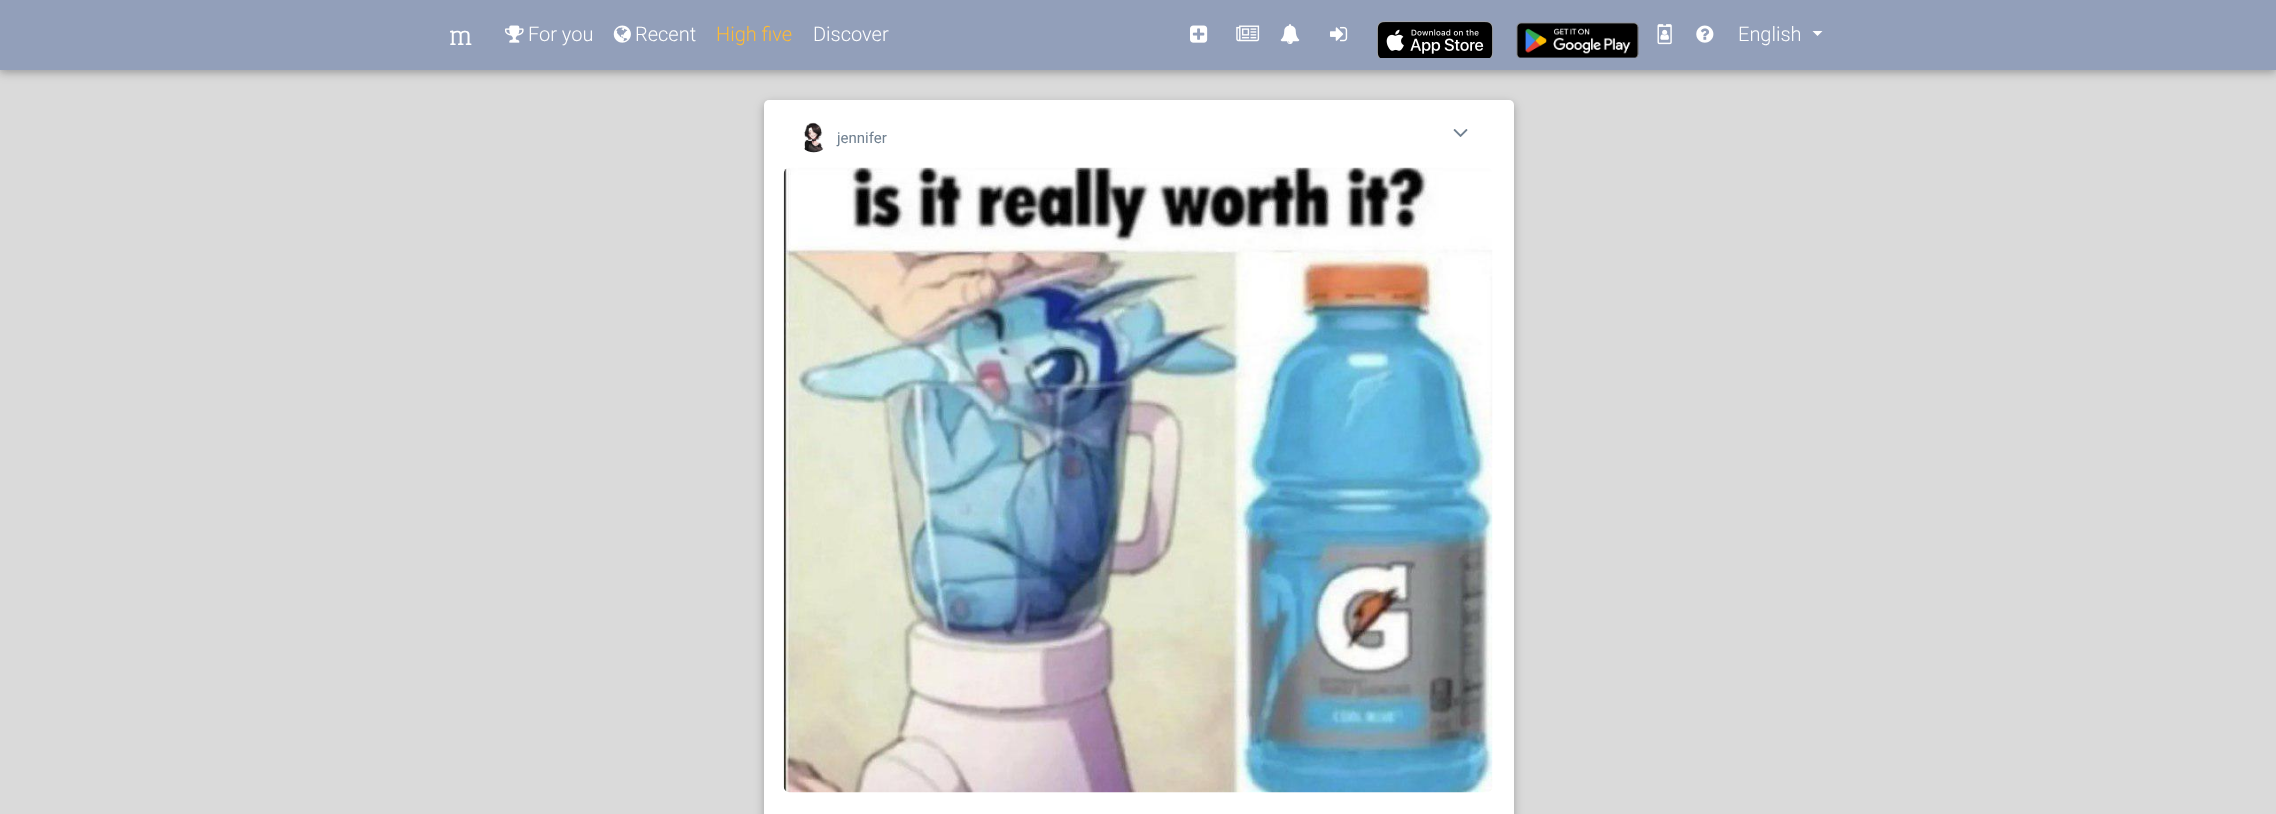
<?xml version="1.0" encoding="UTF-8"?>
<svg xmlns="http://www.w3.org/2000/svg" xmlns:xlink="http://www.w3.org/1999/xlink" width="2276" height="814">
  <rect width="100%" height="100%" fill="#dadada" />
  <rect y="3" width="2276" height="70" fill="#000000" fill-opacity="0.12" filter="blur(6px)" />
  <rect y="3" width="2276" height="70" fill="#000000" fill-opacity="0.16" filter="blur(3px)" />
  <rect width="2276" height="70" fill="#929fba" />
  <image x="505" y="25" width="19" height="18" xlink:href="image1.png" />
  <image x="613" y="25" width="18" height="18" xlink:href="image2.png" />
  <image x="1190" y="25" width="18" height="18" xlink:href="image3.png" />
  <image x="1236" y="25" width="24" height="17" xlink:href="image4.png" />
  <image x="1280" y="24" width="20" height="20" xlink:href="image5.png" />
  <image x="1330" y="26" width="18" height="16" xlink:href="image6.png" />
  <image x="1377" y="21" width="116" height="37" xlink:href="image7.png" />
  <image x="1516" y="22" width="123" height="36" xlink:href="image8.png" />
  <image x="1657" y="24" width="15" height="21" xlink:href="image9.png" />
  <image x="1696" y="25" width="18" height="18" xlink:href="image10.png" />
  <path d="M 1812.5 31 h 10 l -5 5 z" fill="#ffffff" />
  <rect x="764" y="103" width="750" height="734" rx="5" fill="#000000" fill-opacity="0.12" filter="blur(6px)" />
  <rect x="764" y="103" width="750" height="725" rx="5" fill="#000000" fill-opacity="0.16" filter="blur(3px)" />
  <rect x="764" y="100" width="750" height="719" rx="5" fill="#ffffff" />
  <image x="803" y="122" width="21" height="31" xlink:href="image11.png" />
  <image x="1453" y="129" width="15" height="8" xlink:href="image12.png" />
  <image x="783" y="167" width="710" height="626" xlink:href="image13.png" />
  <text x="449" y="45" style="font-family: Kreon; font-size: 30px; font-weight: 300; fill: #ffffff">m</text>
  <text x="528" y="41" style="font-family: Roboto; font-size: 20px; font-weight: 300; fill: #ffffff">For you</text>
  <text x="635" y="41" style="font-family: Roboto; font-size: 20px; font-weight: 300; fill: #ffffff">Recent</text>
  <text x="716" y="41" style="font-family: Roboto; font-size: 20px; font-weight: 300; fill: #ffbb33">High five</text>
  <text x="813" y="41" style="font-family: Roboto; font-size: 20px; font-weight: 300; fill: #ffffff">Discover</text>
  <text x="1738" y="41" style="font-family: Roboto; font-size: 20px; font-weight: 300; fill: #ffffff">English</text>
  <text x="837" y="143" style="font-family: Roboto; font-size: 15px; fill: #708090">jennifer</text>
</svg>
